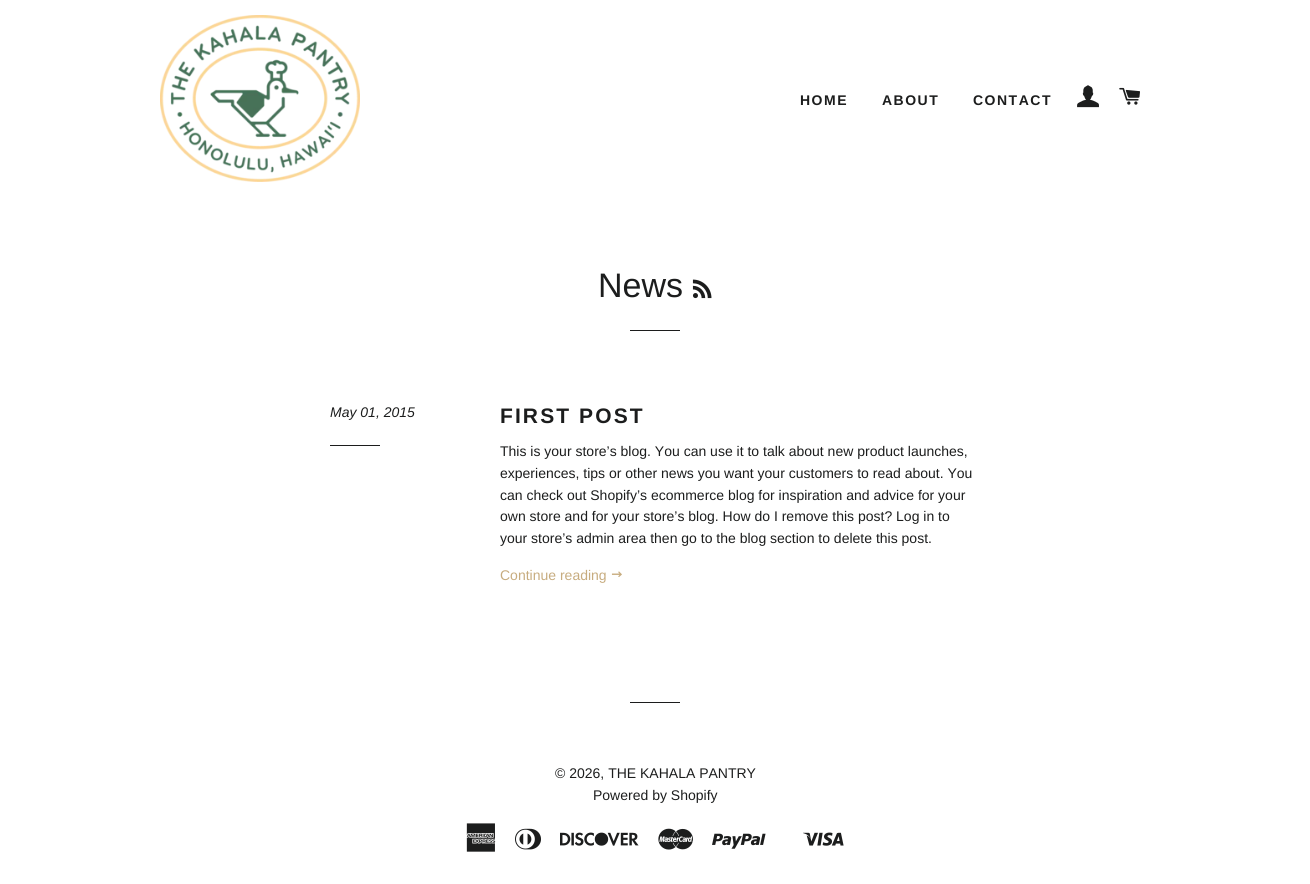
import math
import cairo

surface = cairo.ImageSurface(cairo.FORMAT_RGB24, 1310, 884)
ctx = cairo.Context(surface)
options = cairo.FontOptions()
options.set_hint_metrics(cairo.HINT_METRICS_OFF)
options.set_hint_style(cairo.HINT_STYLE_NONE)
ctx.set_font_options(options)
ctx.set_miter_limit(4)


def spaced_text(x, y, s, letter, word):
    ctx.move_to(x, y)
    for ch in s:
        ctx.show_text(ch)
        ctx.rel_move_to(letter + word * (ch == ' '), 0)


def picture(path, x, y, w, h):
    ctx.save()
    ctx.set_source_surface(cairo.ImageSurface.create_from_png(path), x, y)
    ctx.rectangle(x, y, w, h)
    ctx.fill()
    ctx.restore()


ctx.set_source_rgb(1, 1, 1)
ctx.paint()
picture("img1.png", 160, 15, 200, 167)
ctx.select_font_face("Liberation Sans", cairo.FONT_SLANT_NORMAL, cairo.FONT_WEIGHT_BOLD)
ctx.set_font_size(14)
ctx.set_source_rgb(0.11, 0.114, 0.114)
spaced_text(800, 105, "HOME", 1.5, 0)
spaced_text(882, 105, "ABOUT", 1.5, 0)
spaced_text(973, 105, "CONTACT", 1.5, 0)
picture("img2.png", 1077, 85, 22, 23)
picture("img3.png", 1119, 87, 21, 18)
ctx.select_font_face("Liberation Sans")
ctx.set_font_size(34)
ctx.move_to(598, 297)
ctx.show_text("News")
picture("img4.png", 692, 279, 20, 20)
ctx.rectangle(630, 330, 50, 1)
ctx.fill()
ctx.select_font_face("Liberation Sans", cairo.FONT_SLANT_ITALIC)
ctx.set_font_size(14)
ctx.move_to(330, 417)
ctx.show_text("May 01, 2015")
ctx.rectangle(330, 445, 50, 1)
ctx.fill()
ctx.select_font_face("Liberation Sans", cairo.FONT_SLANT_NORMAL, cairo.FONT_WEIGHT_BOLD)
ctx.set_font_size(21)
spaced_text(500, 423, "FIRST POST", 2.1, 0)
ctx.select_font_face("Liberation Sans")
ctx.set_font_size(14)
ctx.move_to(500, 456)
ctx.show_text("This is your store’s blog. You can use it to talk about new product launches,")
ctx.move_to(500, 478)
ctx.show_text("experiences, tips or other news you want your customers to read about. You")
ctx.move_to(500, 500)
ctx.show_text("can check out Shopify’s ecommerce blog for inspiration and advice for your")
ctx.move_to(500, 521)
ctx.show_text("own store and for your store’s blog. How do I remove this post? Log in to")
ctx.move_to(500, 543)
ctx.show_text("your store’s admin area then go to the blog section to delete this post.")
ctx.set_source_rgb(0.78, 0.675, 0.498)
ctx.move_to(500, 580)
ctx.show_text("Continue reading")
picture("img5.png", 611, 571, 11, 6)
ctx.set_source_rgb(0.11, 0.114, 0.114)
ctx.rectangle(630, 702, 50, 1)
ctx.fill()
ctx.move_to(555, 778)
ctx.show_text("© 2026, THE KAHALA PANTRY")
ctx.move_to(593, 800)
ctx.show_text("Powered by Shopify")
picture("img6.png", 466, 823, 30, 29)
picture("img7.png", 515, 828, 26, 22)
picture("img8.png", 560, 832, 79, 14)
picture("img9.png", 658, 828, 35, 22)
picture("img10.png", 712, 833, 54, 16)
picture("img11.png", 803, 832, 41, 14)
surface.write_to_png("page.png")
